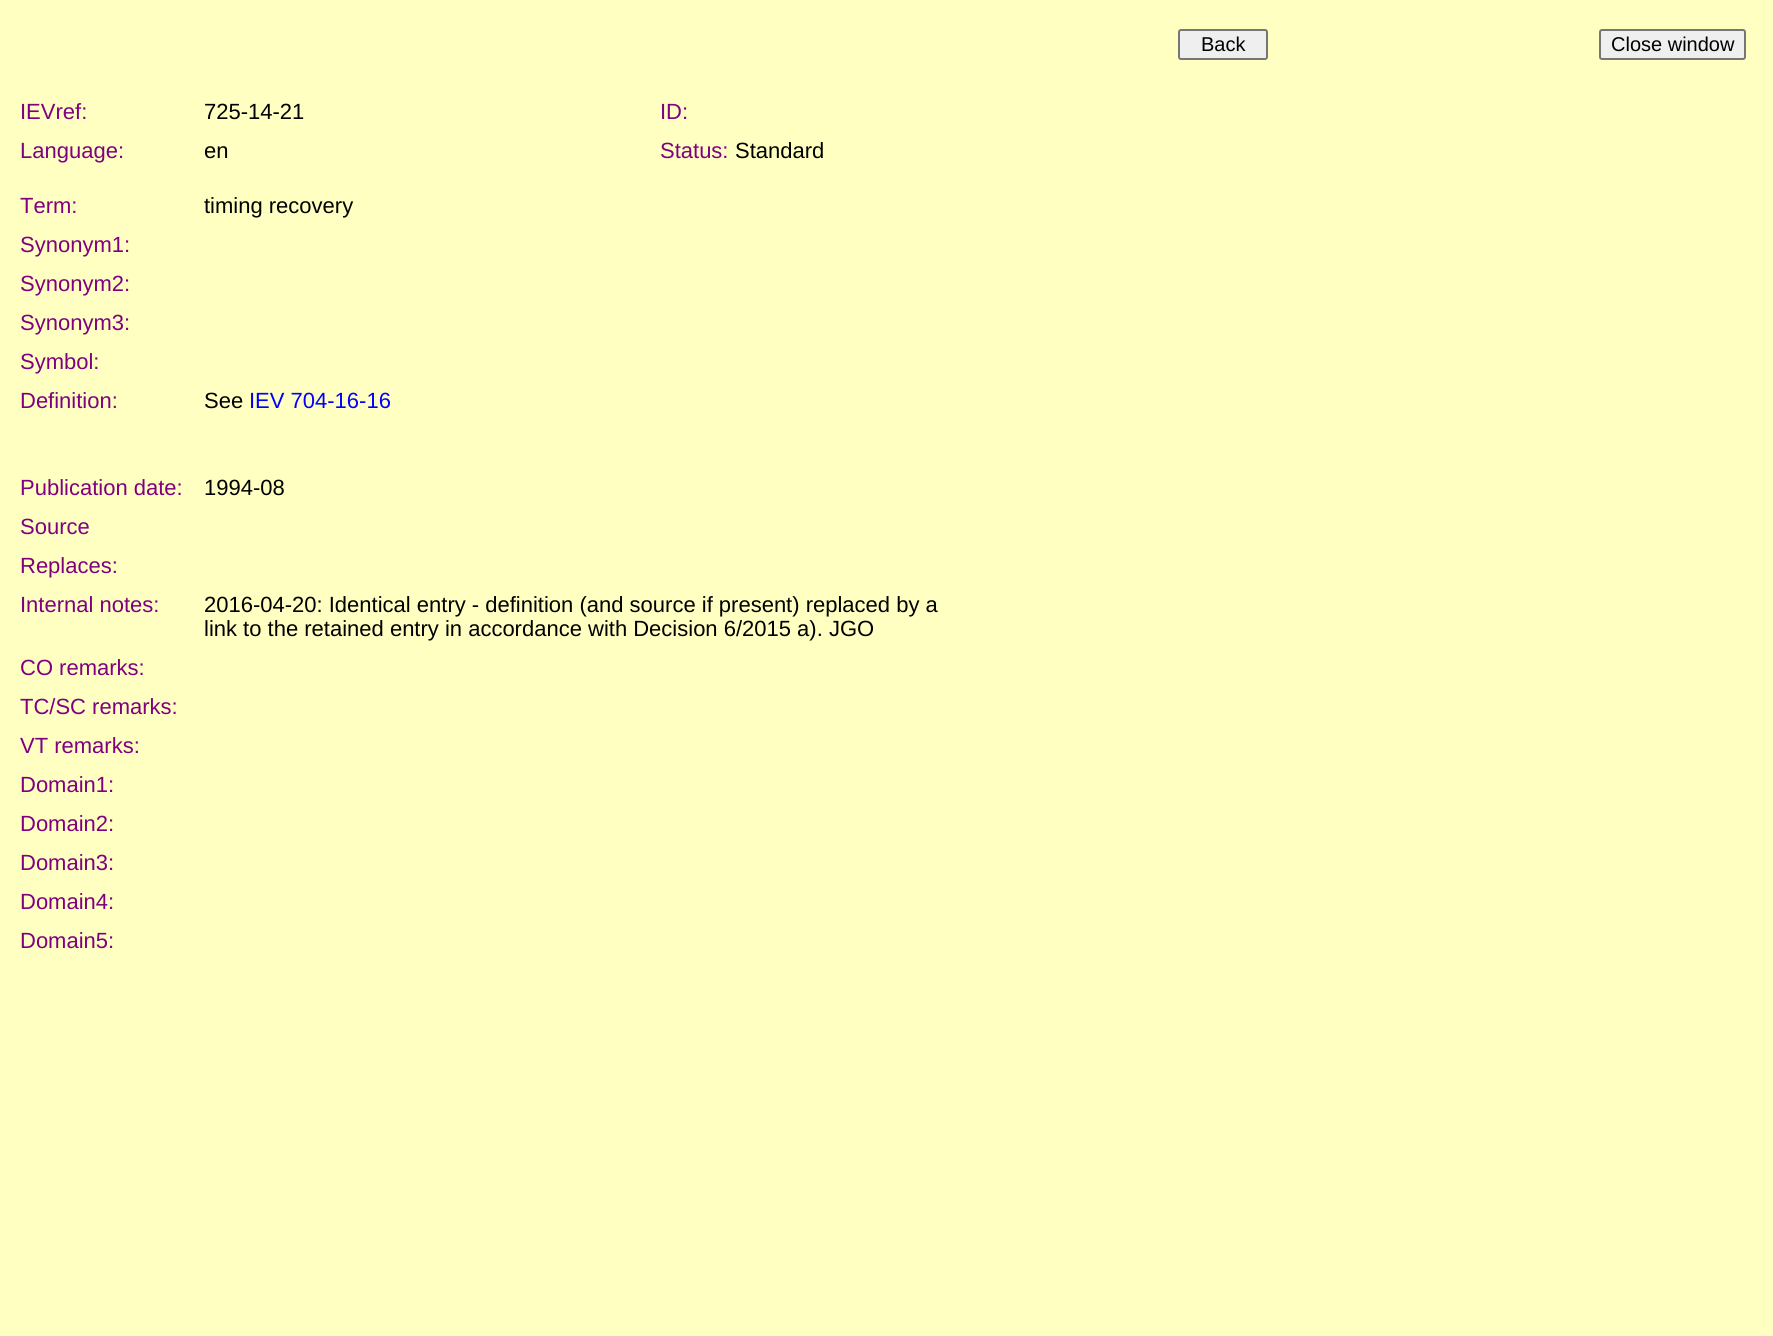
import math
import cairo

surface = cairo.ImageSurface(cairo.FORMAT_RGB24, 1773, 1336)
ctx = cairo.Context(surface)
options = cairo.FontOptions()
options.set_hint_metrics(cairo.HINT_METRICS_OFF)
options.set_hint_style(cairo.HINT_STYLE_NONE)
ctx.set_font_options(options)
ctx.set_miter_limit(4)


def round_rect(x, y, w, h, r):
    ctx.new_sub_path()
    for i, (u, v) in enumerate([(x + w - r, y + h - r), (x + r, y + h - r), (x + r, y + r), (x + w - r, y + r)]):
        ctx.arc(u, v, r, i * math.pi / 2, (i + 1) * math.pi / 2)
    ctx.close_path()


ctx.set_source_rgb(1, 1, 0.761)
ctx.paint()
ctx.set_source_rgb(0.937, 0.937, 0.937)
round_rect(1179, 30, 88, 29, 2)
ctx.fill_preserve()
ctx.set_source_rgb(0.463, 0.463, 0.463)
ctx.stroke()
ctx.select_font_face("Liberation Sans")
ctx.set_font_size(20)
ctx.set_source_rgb(0, 0, 0)
ctx.move_to(1201, 51)
ctx.show_text("Back")
ctx.set_source_rgb(0.937, 0.937, 0.937)
round_rect(1600, 30, 145, 29, 2)
ctx.fill_preserve()
ctx.set_source_rgb(0.463, 0.463, 0.463)
ctx.stroke()
ctx.set_source_rgb(0, 0, 0)
ctx.move_to(1611, 51)
ctx.show_text("Close window")
ctx.set_font_size(22)
ctx.set_source_rgb(0.502, 0, 0.502)
ctx.move_to(20, 119)
ctx.show_text("IEVref:")
ctx.set_source_rgb(0, 0, 0)
ctx.move_to(204, 119)
ctx.show_text("725-14-21")
ctx.set_source_rgb(0.502, 0, 0.502)
ctx.move_to(660, 119)
ctx.show_text("ID:")
ctx.move_to(20, 158)
ctx.show_text("Language:")
ctx.set_source_rgb(0, 0, 0)
ctx.move_to(204, 158)
ctx.show_text("en")
ctx.set_source_rgb(0.502, 0, 0.502)
ctx.move_to(660, 158)
ctx.show_text("Status:")
ctx.set_source_rgb(0, 0, 0)
ctx.move_to(735, 158)
ctx.show_text("Standard")
ctx.set_source_rgb(0.502, 0, 0.502)
ctx.move_to(20, 213)
ctx.show_text("Term:")
ctx.set_source_rgb(0, 0, 0)
ctx.move_to(204, 213)
ctx.show_text("timing recovery")
ctx.set_source_rgb(0.502, 0, 0.502)
ctx.move_to(20, 252)
ctx.show_text("Synonym1:")
ctx.move_to(20, 291)
ctx.show_text("Synonym2:")
ctx.move_to(20, 330)
ctx.show_text("Synonym3:")
ctx.move_to(20, 369)
ctx.show_text("Symbol:")
ctx.move_to(20, 408)
ctx.show_text("Definition:")
ctx.set_source_rgb(0, 0, 0)
ctx.move_to(204, 408)
ctx.show_text("See")
ctx.set_source_rgb(0, 0, 1)
ctx.move_to(249, 408)
ctx.show_text("IEV 704-16-16")
ctx.set_source_rgb(0.502, 0, 0.502)
ctx.move_to(20, 495)
ctx.show_text("Publication date:")
ctx.set_source_rgb(0, 0, 0)
ctx.move_to(204, 495)
ctx.show_text("1994-08")
ctx.set_source_rgb(0.502, 0, 0.502)
ctx.move_to(20, 534)
ctx.show_text("Source")
ctx.move_to(20, 573)
ctx.show_text("Replaces:")
ctx.move_to(20, 612)
ctx.show_text("Internal notes:")
ctx.set_source_rgb(0, 0, 0)
ctx.move_to(204, 612)
ctx.show_text("2016-04-20: Identical entry - definition (and source if present) replaced by a")
ctx.move_to(204, 636)
ctx.show_text("link to the retained entry in accordance with Decision 6/2015 a). JGO")
ctx.set_source_rgb(0.502, 0, 0.502)
ctx.move_to(20, 675)
ctx.show_text("CO remarks:")
ctx.move_to(20, 714)
ctx.show_text("TC/SC remarks:")
ctx.move_to(20, 753)
ctx.show_text("VT remarks:")
ctx.move_to(20, 792)
ctx.show_text("Domain1:")
ctx.move_to(20, 831)
ctx.show_text("Domain2:")
ctx.move_to(20, 870)
ctx.show_text("Domain3:")
ctx.move_to(20, 909)
ctx.show_text("Domain4:")
ctx.move_to(20, 948)
ctx.show_text("Domain5:")
surface.write_to_png("page.png")
